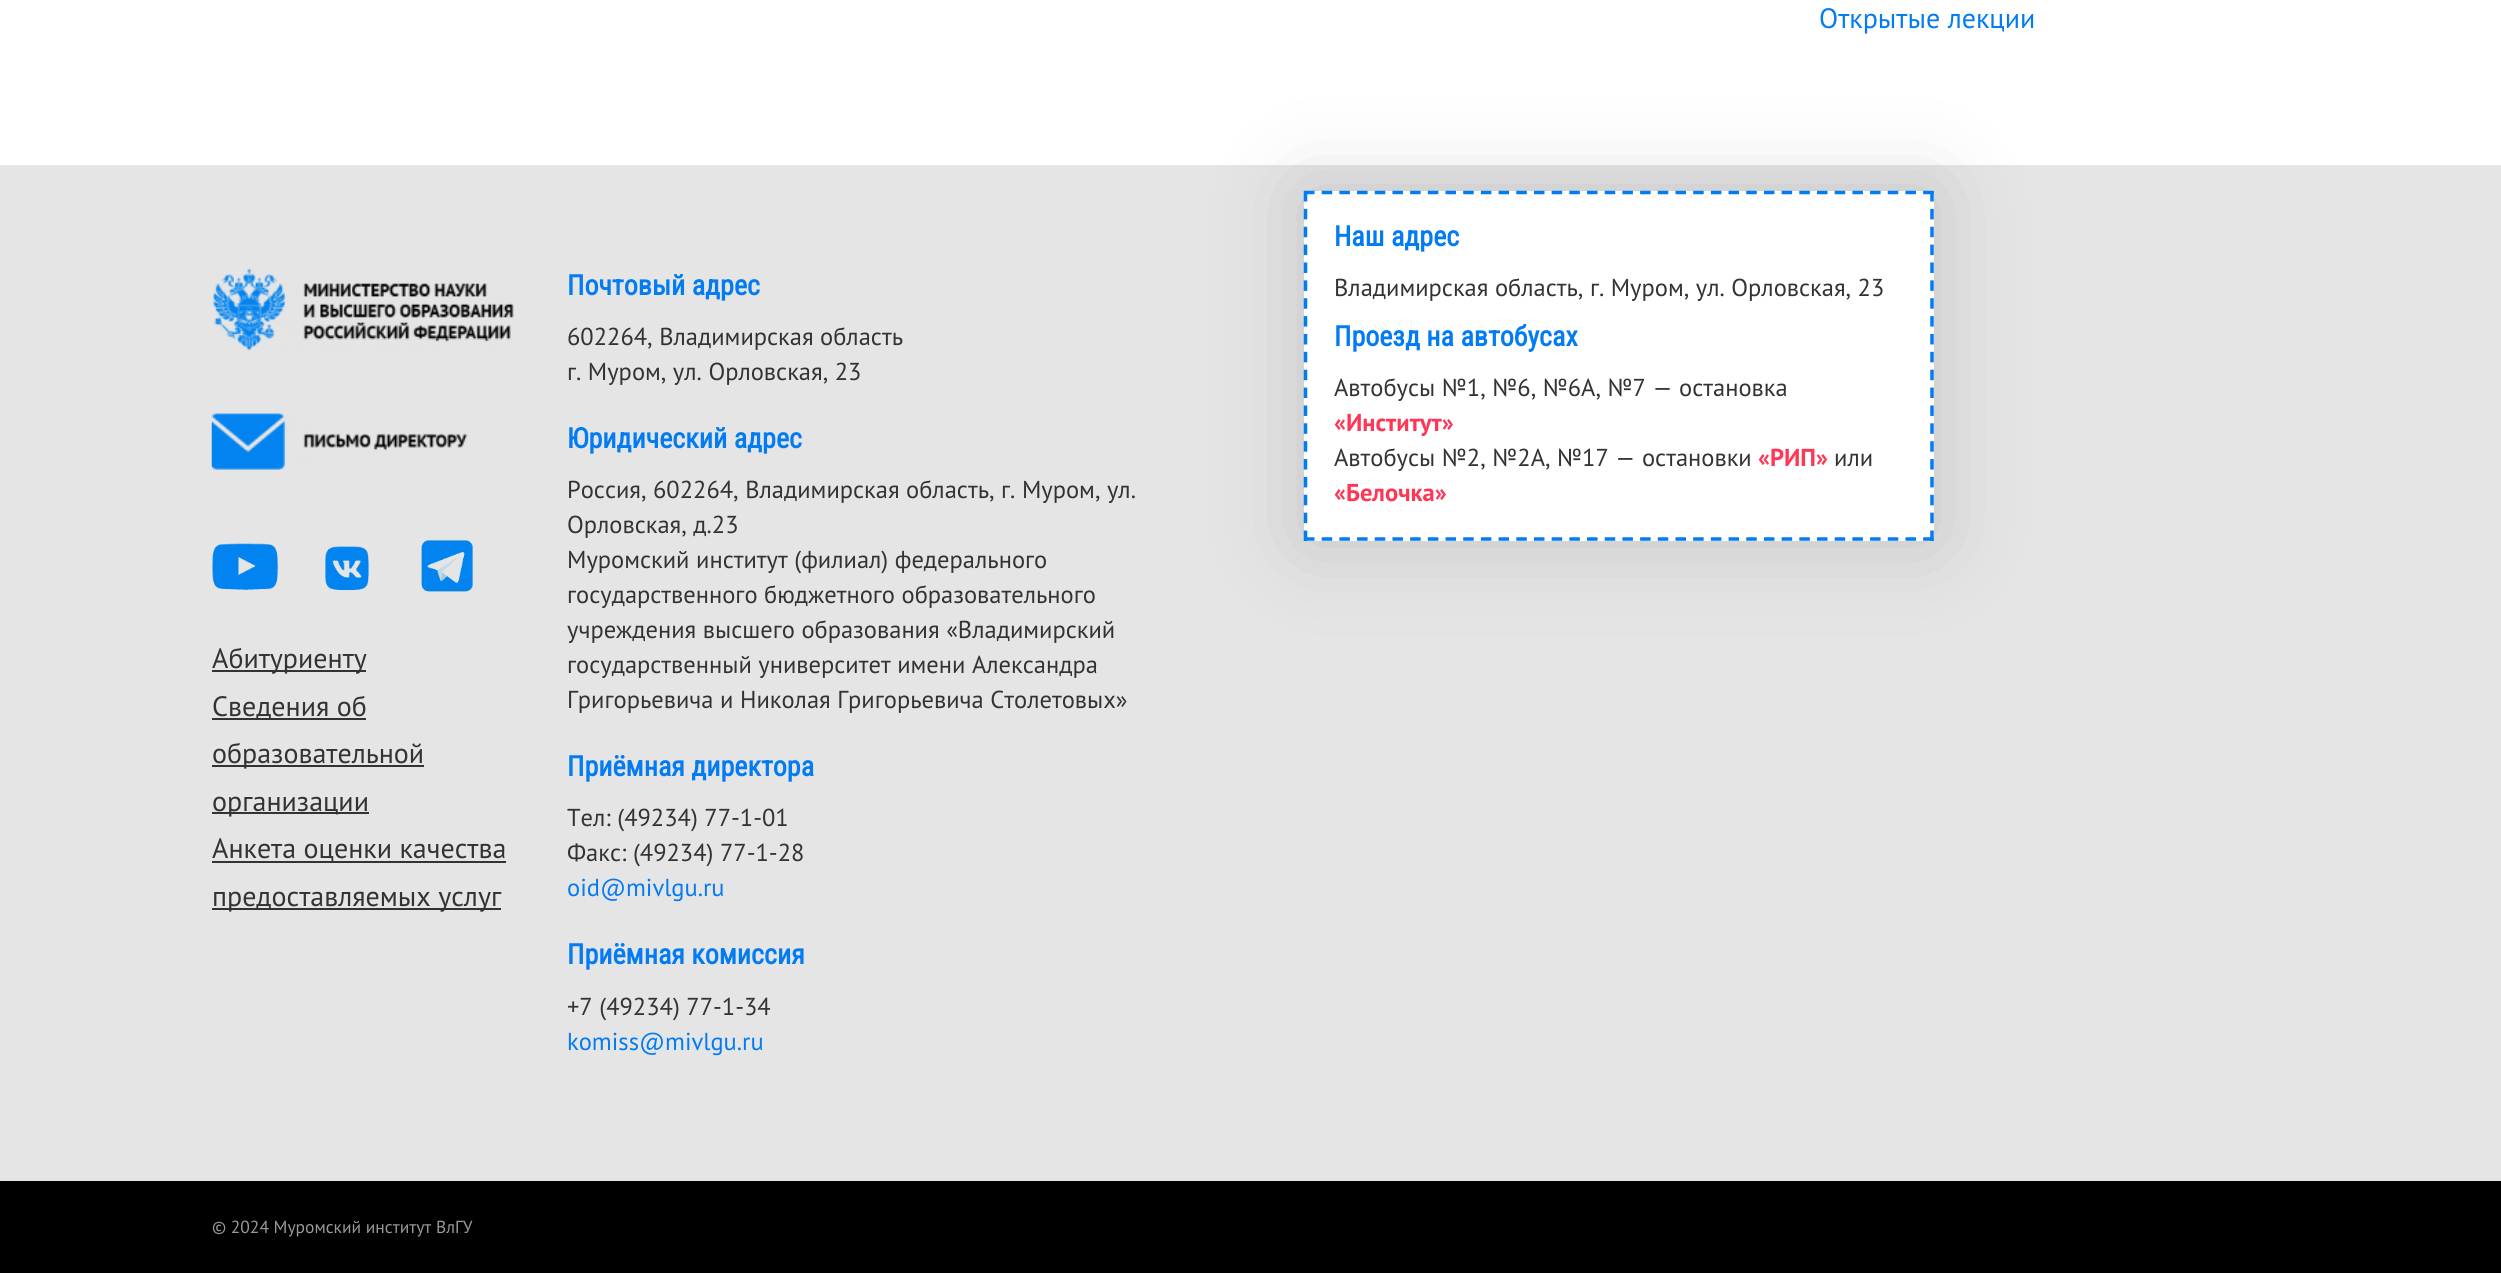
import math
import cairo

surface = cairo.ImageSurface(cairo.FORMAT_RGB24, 2501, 1273)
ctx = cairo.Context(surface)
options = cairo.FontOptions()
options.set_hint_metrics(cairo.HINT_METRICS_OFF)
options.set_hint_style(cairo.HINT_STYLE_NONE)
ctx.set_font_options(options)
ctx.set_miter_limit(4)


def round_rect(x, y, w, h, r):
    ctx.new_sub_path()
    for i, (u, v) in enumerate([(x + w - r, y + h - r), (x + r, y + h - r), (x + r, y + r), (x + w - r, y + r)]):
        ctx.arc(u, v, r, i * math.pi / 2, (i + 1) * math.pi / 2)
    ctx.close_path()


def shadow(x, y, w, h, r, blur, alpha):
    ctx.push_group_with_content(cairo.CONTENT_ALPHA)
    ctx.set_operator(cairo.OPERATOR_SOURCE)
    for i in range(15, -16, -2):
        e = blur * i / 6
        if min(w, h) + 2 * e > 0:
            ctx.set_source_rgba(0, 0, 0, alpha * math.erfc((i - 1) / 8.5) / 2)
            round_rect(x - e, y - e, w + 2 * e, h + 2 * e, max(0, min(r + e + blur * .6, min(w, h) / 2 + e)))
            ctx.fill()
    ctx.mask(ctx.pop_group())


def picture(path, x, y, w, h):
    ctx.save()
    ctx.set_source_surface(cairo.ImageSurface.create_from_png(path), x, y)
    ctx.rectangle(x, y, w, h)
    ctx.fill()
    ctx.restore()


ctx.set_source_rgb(1, 1, 1)
ctx.paint()
ctx.select_font_face("PT Sans")
ctx.set_font_size(28)
ctx.set_source_rgb(0.008, 0.482, 0.953)
ctx.move_to(1819, 28)
ctx.show_text("Открытые лекции")
ctx.set_source_rgb(0.898, 0.898, 0.898)
ctx.rectangle(0, 165, 2501, 1016)
ctx.fill()
picture("img1.png", 213, 268, 301, 83)
picture("img2.png", 211, 413, 257, 57)
picture("img3.png", 212, 543, 67, 47)
picture("img4.png", 325, 546, 44, 44)
picture("img5.png", 421, 540, 52, 52)
ctx.set_source_rgb(0.2, 0.2, 0.2)
ctx.rectangle(212, 670, 154, 2)
ctx.fill()
ctx.move_to(212, 668)
ctx.show_text("Абитуриенту")
ctx.rectangle(212, 718, 154, 2)
ctx.fill()
ctx.move_to(212, 716)
ctx.show_text("Сведения об")
ctx.rectangle(212, 765, 212, 2)
ctx.fill()
ctx.move_to(212, 763)
ctx.show_text("образовательной")
ctx.rectangle(212, 812, 157, 2)
ctx.fill()
ctx.move_to(212, 811)
ctx.show_text("организации")
ctx.rectangle(212, 861, 294, 2)
ctx.fill()
ctx.move_to(212, 858)
ctx.show_text("Анкета оценки качества")
ctx.rectangle(212, 908, 289, 2)
ctx.fill()
ctx.move_to(212, 906)
ctx.show_text("предоставляемых услуг")
ctx.select_font_face("Roboto Condensed", cairo.FONT_SLANT_NORMAL, cairo.FONT_WEIGHT_BOLD)
ctx.set_source_rgb(0.008, 0.482, 0.953)
ctx.move_to(567, 295)
ctx.show_text("Почтовый адрес")
ctx.select_font_face("PT Sans")
ctx.set_font_size(24.5)
ctx.set_source_rgb(0.2, 0.2, 0.2)
ctx.move_to(567, 345)
ctx.show_text("602264, Владимирская область")
ctx.move_to(567, 380)
ctx.show_text("г. Муром, ул. Орловская, 23")
ctx.select_font_face("Roboto Condensed", cairo.FONT_SLANT_NORMAL, cairo.FONT_WEIGHT_BOLD)
ctx.set_font_size(28)
ctx.set_source_rgb(0.008, 0.482, 0.953)
ctx.move_to(567, 448)
ctx.show_text("Юридический адрес")
ctx.select_font_face("PT Sans")
ctx.set_font_size(24.5)
ctx.set_source_rgb(0.2, 0.2, 0.2)
ctx.move_to(567, 498)
ctx.show_text("Россия, 602264, Владимирская область, г. Муром, ул.")
ctx.move_to(567, 533)
ctx.show_text("Орловская, д.23")
ctx.move_to(567, 568)
ctx.show_text("Муромский институт (филиал) федерального")
ctx.move_to(567, 603)
ctx.show_text("государственного бюджетного образовательного")
ctx.move_to(567, 638)
ctx.show_text("учреждения высшего образования «Владимирский")
ctx.move_to(567, 673)
ctx.show_text("государственный университет имени Александра")
ctx.move_to(567, 708)
ctx.show_text("Григорьевича и Николая Григорьевича Столетовых»")
ctx.select_font_face("Roboto Condensed", cairo.FONT_SLANT_NORMAL, cairo.FONT_WEIGHT_BOLD)
ctx.set_font_size(28)
ctx.set_source_rgb(0.008, 0.482, 0.953)
ctx.move_to(567, 776)
ctx.show_text("Приёмная директора")
ctx.select_font_face("PT Sans")
ctx.set_font_size(24.5)
ctx.set_source_rgb(0.2, 0.2, 0.2)
ctx.move_to(567, 826)
ctx.show_text("Тел: (49234) 77-1-01")
ctx.move_to(567, 861)
ctx.show_text("Факс: (49234) 77-1-28")
ctx.set_source_rgb(0.008, 0.482, 0.953)
ctx.move_to(567, 896)
ctx.show_text("oid@mivlgu.ru")
ctx.select_font_face("Roboto Condensed", cairo.FONT_SLANT_NORMAL, cairo.FONT_WEIGHT_BOLD)
ctx.set_font_size(28)
ctx.move_to(567, 964)
ctx.show_text("Приёмная комиссия")
ctx.select_font_face("PT Sans")
ctx.set_font_size(24.5)
ctx.set_source_rgb(0.2, 0.2, 0.2)
ctx.move_to(567, 1015)
ctx.show_text("+7 (49234) 77-1-34")
ctx.set_source_rgb(0.008, 0.482, 0.953)
ctx.move_to(567, 1050)
ctx.show_text("komiss@mivlgu.ru")
ctx.set_source_rgb(0.2, 0.2, 0.2)
shadow(1304, 191, 630, 350, 0, 44, 0.2)
ctx.set_source_rgb(1, 1, 1)
ctx.rectangle(1304, 191, 630, 350)
ctx.fill()
ctx.new_path()
ctx.move_to(1304, 192.5)
ctx.line_to(1934, 192.5)
ctx.set_source_rgb(0.008, 0.482, 0.953)
ctx.set_line_width(3.5)
ctx.set_dash([10.5, 7.19])
ctx.stroke()
ctx.new_path()
ctx.move_to(1932, 191)
ctx.line_to(1932, 541)
ctx.set_dash([10.5, 7.37])
ctx.stroke()
ctx.new_path()
ctx.move_to(1304, 539)
ctx.line_to(1934, 539)
ctx.set_dash([10.5, 7.19])
ctx.stroke()
ctx.new_path()
ctx.move_to(1305.5, 191)
ctx.line_to(1305.5, 541)
ctx.set_dash([10.5, 7.37])
ctx.stroke()
ctx.select_font_face("Roboto Condensed", cairo.FONT_SLANT_NORMAL, cairo.FONT_WEIGHT_BOLD)
ctx.set_font_size(28)
ctx.move_to(1334, 246)
ctx.show_text("Наш адрес")
ctx.select_font_face("PT Sans")
ctx.set_font_size(24.5)
ctx.set_source_rgb(0.2, 0.2, 0.2)
ctx.move_to(1334, 296)
ctx.show_text("Владимирская область, г. Муром, ул. Орловская, 23")
ctx.select_font_face("Roboto Condensed", cairo.FONT_SLANT_NORMAL, cairo.FONT_WEIGHT_BOLD)
ctx.set_font_size(28)
ctx.set_source_rgb(0.008, 0.482, 0.953)
ctx.move_to(1334, 346)
ctx.show_text("Проезд на автобусах")
ctx.select_font_face("PT Sans")
ctx.set_font_size(24.5)
ctx.set_source_rgb(0.2, 0.2, 0.2)
ctx.move_to(1334, 396)
ctx.show_text("Автобусы №1, №6, №6А, №7 — остановка")
ctx.select_font_face("PT Sans", cairo.FONT_SLANT_NORMAL, cairo.FONT_WEIGHT_BOLD)
ctx.set_source_rgb(1, 0.216, 0.337)
ctx.move_to(1334, 431)
ctx.show_text("«Институт»")
ctx.select_font_face("PT Sans")
ctx.set_source_rgb(0.2, 0.2, 0.2)
ctx.move_to(1334, 466)
ctx.show_text("Автобусы №2, №2А, №17 — остановки")
ctx.select_font_face("PT Sans", cairo.FONT_SLANT_NORMAL, cairo.FONT_WEIGHT_BOLD)
ctx.set_source_rgb(1, 0.216, 0.337)
ctx.move_to(1758, 466)
ctx.show_text("«РИП»")
ctx.select_font_face("PT Sans")
ctx.set_source_rgb(0.2, 0.2, 0.2)
ctx.move_to(1834, 466)
ctx.show_text("или")
ctx.select_font_face("PT Sans", cairo.FONT_SLANT_NORMAL, cairo.FONT_WEIGHT_BOLD)
ctx.set_source_rgb(1, 0.216, 0.337)
ctx.move_to(1334, 501)
ctx.show_text("«Белочка»")
ctx.set_source_rgb(0, 0, 0)
ctx.rectangle(0, 1181, 2501, 92)
ctx.fill()
ctx.select_font_face("PT Sans")
ctx.set_font_size(17.5)
ctx.set_source_rgb(0.6, 0.6, 0.6)
ctx.move_to(212, 1233)
ctx.show_text("© 2024 Муромский институт ВлГУ")
surface.write_to_png("page.png")
